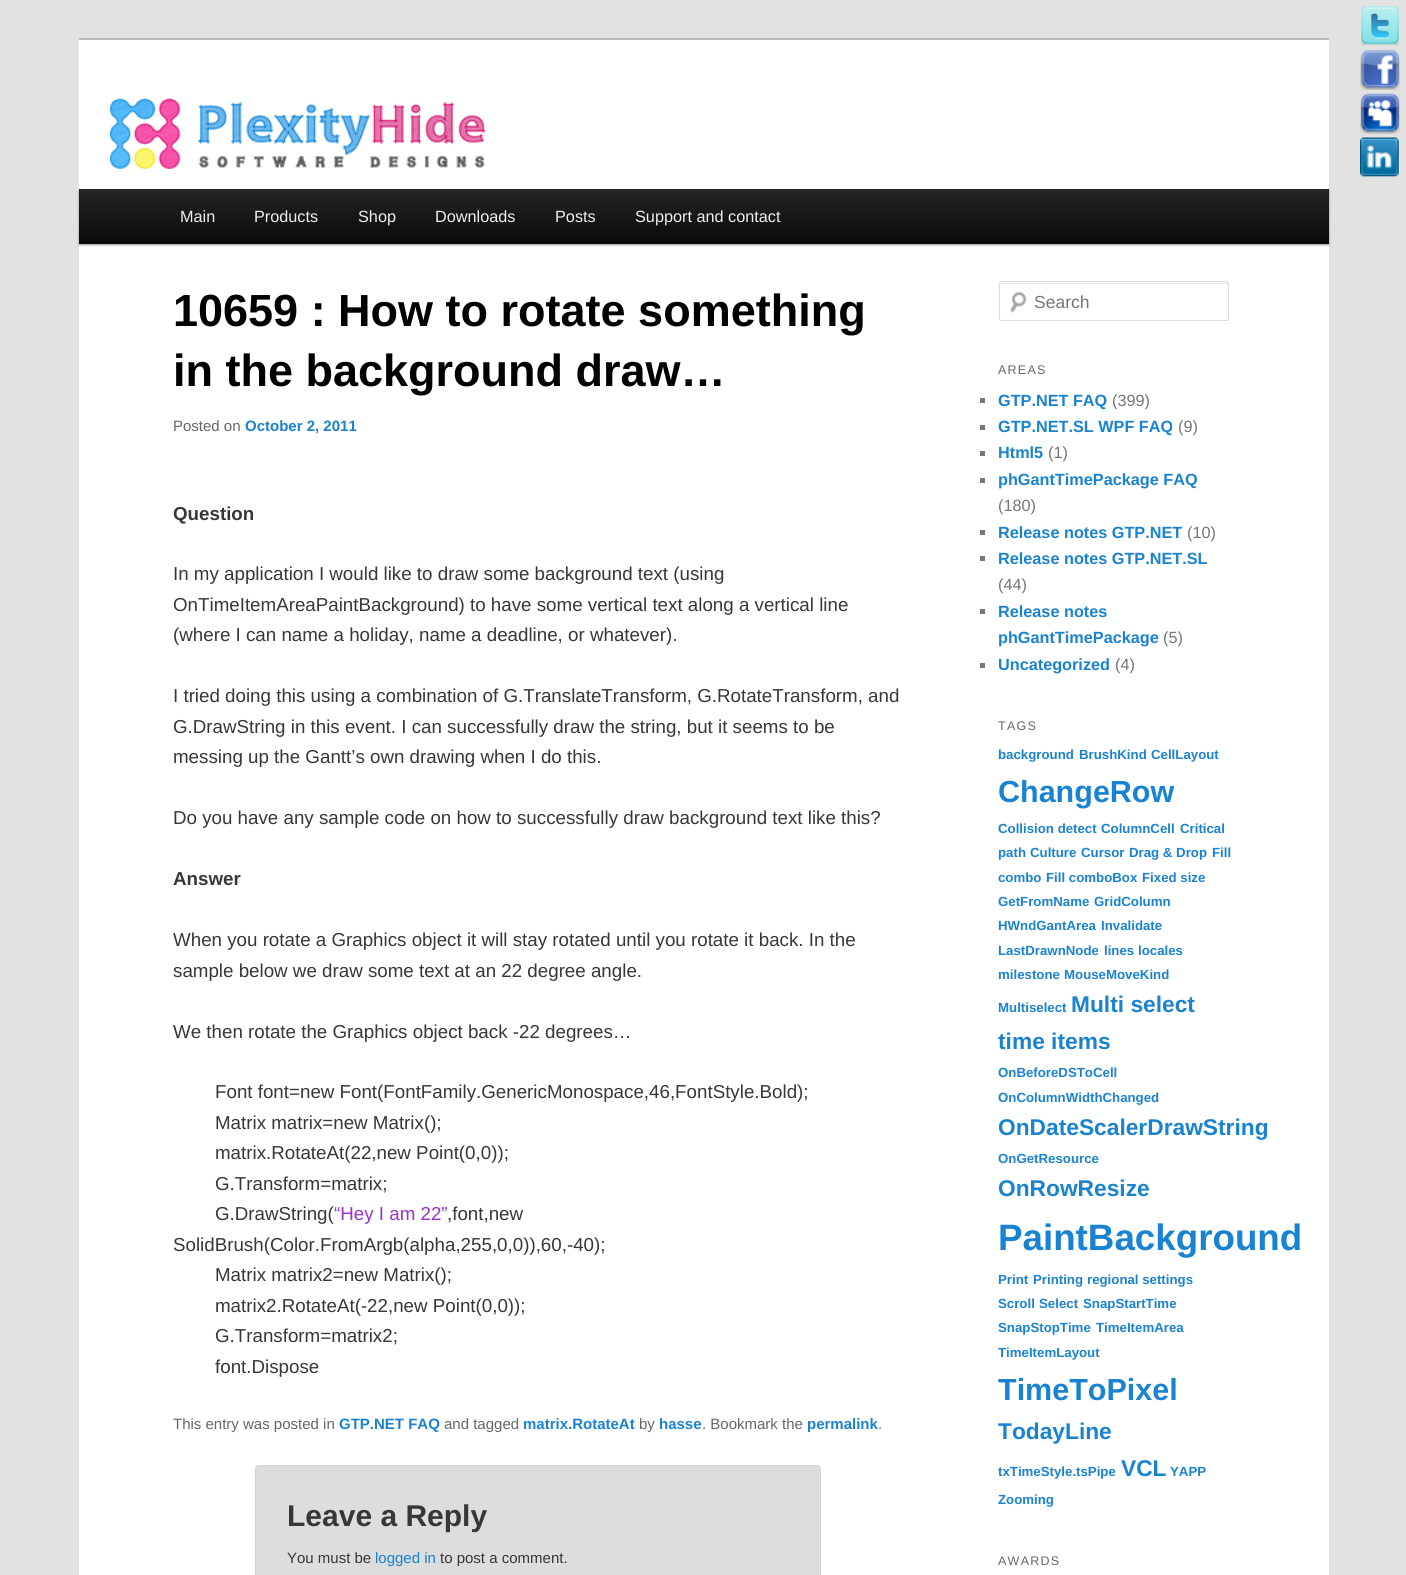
import math
import cairo

surface = cairo.ImageSurface(cairo.FORMAT_RGB24, 1406, 1575)
ctx = cairo.Context(surface)
options = cairo.FontOptions()
options.set_hint_metrics(cairo.HINT_METRICS_OFF)
options.set_hint_style(cairo.HINT_STYLE_NONE)
ctx.set_font_options(options)
ctx.set_miter_limit(4)


def spaced_text(x, y, s, letter, word):
    ctx.move_to(x, y)
    for ch in s:
        ctx.show_text(ch)
        ctx.rel_move_to(letter + word * (ch == ' '), 0)


def round_rect(x, y, w, h, r):
    ctx.new_sub_path()
    for i, (u, v) in enumerate([(x + w - r, y + h - r), (x + r, y + h - r), (x + r, y + r), (x + w - r, y + r)]):
        ctx.arc(u, v, r, i * math.pi / 2, (i + 1) * math.pi / 2)
    ctx.close_path()


def shadow(x, y, w, h, r, blur, alpha):
    ctx.push_group_with_content(cairo.CONTENT_ALPHA)
    ctx.set_operator(cairo.OPERATOR_SOURCE)
    for i in range(15, -16, -2):
        e = blur * i / 6
        if min(w, h) + 2 * e > 0:
            ctx.set_source_rgba(0, 0, 0, alpha * math.erfc((i - 1) / 8.5) / 2)
            round_rect(x - e, y - e, w + 2 * e, h + 2 * e, max(0, min(r + e + blur * .6, min(w, h) / 2 + e)))
            ctx.fill()
    ctx.mask(ctx.pop_group())


def picture(path, x, y, w, h):
    ctx.save()
    ctx.set_source_surface(cairo.ImageSurface.create_from_png(path), x, y)
    ctx.rectangle(x, y, w, h)
    ctx.fill()
    ctx.restore()


ctx.set_source_rgb(0.886, 0.886, 0.886)
ctx.paint()
picture("img1.png", 1361, 6, 38, 40)
picture("img2.png", 1360, 50, 40, 40)
picture("img3.png", 1360, 93, 40, 41)
picture("img4.png", 1360, 137, 39, 40)
ctx.set_source_rgb(1, 1, 1)
ctx.rectangle(79, 41, 1250, 1534)
ctx.fill()
ctx.set_source_rgb(0.733, 0.733, 0.733)
ctx.rectangle(79, 38, 1250, 3)
ctx.fill()
ctx.set_source_rgb(0, 0, 0)
shadow(79, 190, 1250, 55, 0, 1, 0.4)
picture("img5.png", 78, 40, 1251, 149)
gradient = cairo.LinearGradient(704, 189, 704, 244)
gradient.add_color_stop_rgba(0, 0.145, 0.145, 0.145, 1)
gradient.add_color_stop_rgba(1, 0.039, 0.039, 0.039, 1)
ctx.set_source(gradient)
ctx.rectangle(79, 189, 1250, 55)
ctx.fill()
ctx.select_font_face("Liberation Sans")
ctx.set_font_size(16.25)
ctx.set_source_rgb(0.933, 0.933, 0.933)
ctx.move_to(180, 222)
ctx.show_text("Main")
ctx.move_to(254, 222)
ctx.show_text("Products")
ctx.move_to(358, 222)
ctx.show_text("Shop")
ctx.move_to(435, 222)
ctx.show_text("Downloads")
ctx.move_to(555, 222)
ctx.show_text("Posts")
ctx.move_to(635, 222)
ctx.show_text("Support and contact")
ctx.select_font_face("Liberation Sans", cairo.FONT_SLANT_NORMAL, cairo.FONT_WEIGHT_BOLD)
ctx.set_font_size(45)
ctx.set_source_rgb(0, 0, 0)
ctx.move_to(173, 326)
ctx.show_text("10659 : How to rotate something")
ctx.move_to(173, 386)
ctx.show_text("in the background draw…")
ctx.select_font_face("Liberation Sans")
ctx.set_font_size(15)
ctx.set_source_rgb(0.4, 0.4, 0.4)
ctx.move_to(173, 431)
ctx.show_text("Posted on")
ctx.select_font_face("Liberation Sans", cairo.FONT_SLANT_NORMAL, cairo.FONT_WEIGHT_BOLD)
ctx.set_source_rgb(0.098, 0.51, 0.82)
ctx.move_to(245, 431)
ctx.show_text("October 2, 2011")
ctx.set_font_size(18.75)
ctx.set_source_rgb(0.216, 0.216, 0.216)
ctx.move_to(173, 520)
ctx.show_text("Question")
ctx.select_font_face("Liberation Sans")
ctx.move_to(173, 580)
ctx.show_text("In my application I would like to draw some background text (using")
ctx.move_to(173, 611)
ctx.show_text("OnTimeItemAreaPaintBackground) to have some vertical text along a vertical line")
ctx.move_to(173, 641)
ctx.show_text("(where I can name a holiday, name a deadline, or whatever).")
ctx.move_to(173, 702)
ctx.show_text("I tried doing this using a combination of G.TranslateTransform, G.RotateTransform, and")
ctx.move_to(173, 733)
ctx.show_text("G.DrawString in this event. I can successfully draw the string, but it seems to be")
ctx.move_to(173, 763)
ctx.show_text("messing up the Gantt’s own drawing when I do this.")
ctx.move_to(173, 824)
ctx.show_text("Do you have any sample code on how to successfully draw background text like this?")
ctx.select_font_face("Liberation Sans", cairo.FONT_SLANT_NORMAL, cairo.FONT_WEIGHT_BOLD)
ctx.move_to(173, 885)
ctx.show_text("Answer")
ctx.select_font_face("Liberation Sans")
ctx.move_to(173, 946)
ctx.show_text("When you rotate a Graphics object it will stay rotated until you rotate it back. In the")
ctx.move_to(173, 977)
ctx.show_text("sample below we draw some text at an 22 degree angle.")
ctx.move_to(173, 1038)
ctx.show_text("We then rotate the Graphics object back -22 degrees…")
ctx.move_to(215, 1098)
ctx.show_text("Font font=new Font(FontFamily.GenericMonospace,46,FontStyle.Bold);")
ctx.move_to(215, 1129)
ctx.show_text("Matrix matrix=new Matrix();")
ctx.move_to(215, 1159)
ctx.show_text("matrix.RotateAt(22,new Point(0,0));")
ctx.move_to(215, 1190)
ctx.show_text("G.Transform=matrix;")
ctx.move_to(215, 1220)
ctx.show_text("G.DrawString(")
ctx.set_source_rgb(0.6, 0.2, 0.8)
ctx.move_to(334, 1220)
ctx.show_text("“Hey I am 22”")
ctx.set_source_rgb(0.216, 0.216, 0.216)
ctx.move_to(447, 1220)
ctx.show_text(",font,new")
ctx.move_to(173, 1251)
ctx.show_text("SolidBrush(Color.FromArgb(alpha,255,0,0)),60,-40);")
ctx.move_to(215, 1281)
ctx.show_text("Matrix matrix2=new Matrix();")
ctx.move_to(215, 1312)
ctx.show_text("matrix2.RotateAt(-22,new Point(0,0));")
ctx.move_to(215, 1342)
ctx.show_text("G.Transform=matrix2;")
ctx.move_to(215, 1373)
ctx.show_text("font.Dispose")
ctx.set_font_size(15)
ctx.set_source_rgb(0.4, 0.4, 0.4)
ctx.move_to(173, 1429)
ctx.show_text("This entry was posted in")
ctx.select_font_face("Liberation Sans", cairo.FONT_SLANT_NORMAL, cairo.FONT_WEIGHT_BOLD)
ctx.set_source_rgb(0.098, 0.51, 0.82)
ctx.move_to(339, 1429)
ctx.show_text("GTP.NET FAQ")
ctx.select_font_face("Liberation Sans")
ctx.set_source_rgb(0.4, 0.4, 0.4)
ctx.move_to(444, 1429)
ctx.show_text("and tagged")
ctx.select_font_face("Liberation Sans", cairo.FONT_SLANT_NORMAL, cairo.FONT_WEIGHT_BOLD)
ctx.set_source_rgb(0.098, 0.51, 0.82)
ctx.move_to(523, 1429)
ctx.show_text("matrix.RotateAt")
ctx.select_font_face("Liberation Sans")
ctx.set_source_rgb(0.4, 0.4, 0.4)
ctx.move_to(639, 1429)
ctx.show_text("by")
ctx.select_font_face("Liberation Sans", cairo.FONT_SLANT_NORMAL, cairo.FONT_WEIGHT_BOLD)
ctx.set_source_rgb(0.098, 0.51, 0.82)
ctx.move_to(659, 1429)
ctx.show_text("hasse")
ctx.select_font_face("Liberation Sans")
ctx.set_source_rgb(0.4, 0.4, 0.4)
ctx.move_to(702, 1429)
ctx.show_text(". Bookmark the")
ctx.select_font_face("Liberation Sans", cairo.FONT_SLANT_NORMAL, cairo.FONT_WEIGHT_BOLD)
ctx.set_source_rgb(0.098, 0.51, 0.82)
ctx.move_to(807, 1429)
ctx.show_text("permalink")
ctx.select_font_face("Liberation Sans")
ctx.set_source_rgb(0.4, 0.4, 0.4)
ctx.move_to(878, 1429)
ctx.show_text(".")
ctx.set_source_rgb(0.867, 0.867, 0.867)
round_rect(255.5, 1465.5, 565, 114, 3.5)
ctx.fill_preserve()
ctx.set_source_rgb(0.827, 0.827, 0.827)
ctx.set_line_width(1)
ctx.stroke()
ctx.select_font_face("Liberation Sans", cairo.FONT_SLANT_NORMAL, cairo.FONT_WEIGHT_BOLD)
ctx.set_font_size(30)
ctx.set_source_rgb(0.216, 0.216, 0.216)
ctx.move_to(287, 1526)
ctx.show_text("Leave a Reply")
ctx.select_font_face("Liberation Sans")
ctx.set_font_size(15)
ctx.move_to(287, 1563)
ctx.show_text("You must be")
ctx.set_source_rgb(0.098, 0.51, 0.82)
ctx.move_to(375, 1563)
ctx.show_text("logged in")
ctx.set_source_rgb(0.216, 0.216, 0.216)
ctx.move_to(440, 1563)
ctx.show_text("to post a comment.")
picture("img6.png", 1010, 291, 17, 22)
ctx.set_source_rgb(0.902, 0.902, 0.902)
ctx.new_path()
ctx.move_to(1001, 284)
ctx.line_to(1226, 284)
ctx.curve_to(1227, 284, 1228, 284, 1228, 285)
ctx.line_to(1228, 283)
ctx.line_to(1001, 283)
ctx.curve_to(1000, 283, 1000, 284, 1000, 285)
ctx.close_path()
ctx.fill()
round_rect(999.5, 281.5, 229, 39, 2)
ctx.set_source_rgb(0.867, 0.867, 0.867)
ctx.stroke()
ctx.set_font_size(17.5)
ctx.set_source_rgb(0.459, 0.459, 0.459)
ctx.move_to(1034, 308)
ctx.show_text("Search")
ctx.set_font_size(12.5)
ctx.set_source_rgb(0.4, 0.4, 0.4)
spaced_text(998, 374, "AREAS", 1.25, 0)
ctx.set_source_rgb(0.467, 0.467, 0.467)
ctx.rectangle(980, 398, 5, 5)
ctx.fill()
ctx.select_font_face("Liberation Sans", cairo.FONT_SLANT_NORMAL, cairo.FONT_WEIGHT_BOLD)
ctx.set_font_size(16.25)
ctx.set_source_rgb(0.098, 0.51, 0.82)
ctx.move_to(998, 406)
ctx.show_text("GTP.NET FAQ")
ctx.select_font_face("Liberation Sans")
ctx.set_source_rgb(0.459, 0.459, 0.459)
ctx.move_to(1112, 406)
ctx.show_text("(399)")
ctx.set_source_rgb(0.467, 0.467, 0.467)
ctx.rectangle(980, 425, 5, 5)
ctx.fill()
ctx.select_font_face("Liberation Sans", cairo.FONT_SLANT_NORMAL, cairo.FONT_WEIGHT_BOLD)
ctx.set_source_rgb(0.098, 0.51, 0.82)
ctx.move_to(998, 432)
ctx.show_text("GTP.NET.SL WPF FAQ")
ctx.select_font_face("Liberation Sans")
ctx.set_source_rgb(0.459, 0.459, 0.459)
ctx.move_to(1178, 432)
ctx.show_text("(9)")
ctx.set_source_rgb(0.467, 0.467, 0.467)
ctx.rectangle(980, 451, 5, 5)
ctx.fill()
ctx.select_font_face("Liberation Sans", cairo.FONT_SLANT_NORMAL, cairo.FONT_WEIGHT_BOLD)
ctx.set_source_rgb(0.098, 0.51, 0.82)
ctx.move_to(998, 458)
ctx.show_text("Html5")
ctx.select_font_face("Liberation Sans")
ctx.set_source_rgb(0.459, 0.459, 0.459)
ctx.move_to(1048, 458)
ctx.show_text("(1)")
ctx.set_source_rgb(0.467, 0.467, 0.467)
ctx.rectangle(980, 478, 5, 5)
ctx.fill()
ctx.select_font_face("Liberation Sans", cairo.FONT_SLANT_NORMAL, cairo.FONT_WEIGHT_BOLD)
ctx.set_source_rgb(0.098, 0.51, 0.82)
ctx.move_to(998, 485)
ctx.show_text("phGantTimePackage FAQ")
ctx.select_font_face("Liberation Sans")
ctx.set_source_rgb(0.459, 0.459, 0.459)
ctx.move_to(998, 511)
ctx.show_text("(180)")
ctx.set_source_rgb(0.467, 0.467, 0.467)
ctx.rectangle(980, 530, 5, 5)
ctx.fill()
ctx.select_font_face("Liberation Sans", cairo.FONT_SLANT_NORMAL, cairo.FONT_WEIGHT_BOLD)
ctx.set_source_rgb(0.098, 0.51, 0.82)
ctx.move_to(998, 538)
ctx.show_text("Release notes GTP.NET")
ctx.select_font_face("Liberation Sans")
ctx.set_source_rgb(0.459, 0.459, 0.459)
ctx.move_to(1187, 538)
ctx.show_text("(10)")
ctx.set_source_rgb(0.467, 0.467, 0.467)
ctx.rectangle(980, 556, 5, 5)
ctx.fill()
ctx.select_font_face("Liberation Sans", cairo.FONT_SLANT_NORMAL, cairo.FONT_WEIGHT_BOLD)
ctx.set_source_rgb(0.098, 0.51, 0.82)
ctx.move_to(998, 564)
ctx.show_text("Release notes GTP.NET.SL")
ctx.select_font_face("Liberation Sans")
ctx.set_source_rgb(0.459, 0.459, 0.459)
ctx.move_to(998, 590)
ctx.show_text("(44)")
ctx.set_source_rgb(0.467, 0.467, 0.467)
ctx.rectangle(980, 609, 5, 5)
ctx.fill()
ctx.select_font_face("Liberation Sans", cairo.FONT_SLANT_NORMAL, cairo.FONT_WEIGHT_BOLD)
ctx.set_source_rgb(0.098, 0.51, 0.82)
ctx.move_to(998, 617)
ctx.show_text("Release notes")
ctx.move_to(998, 643)
ctx.show_text("phGantTimePackage")
ctx.select_font_face("Liberation Sans")
ctx.set_source_rgb(0.459, 0.459, 0.459)
ctx.move_to(1163, 643)
ctx.show_text("(5)")
ctx.set_source_rgb(0.467, 0.467, 0.467)
ctx.rectangle(980, 663, 5, 5)
ctx.fill()
ctx.select_font_face("Liberation Sans", cairo.FONT_SLANT_NORMAL, cairo.FONT_WEIGHT_BOLD)
ctx.set_source_rgb(0.098, 0.51, 0.82)
ctx.move_to(998, 670)
ctx.show_text("Uncategorized")
ctx.select_font_face("Liberation Sans")
ctx.set_source_rgb(0.459, 0.459, 0.459)
ctx.move_to(1115, 670)
ctx.show_text("(4)")
ctx.set_font_size(12.5)
ctx.set_source_rgb(0.4, 0.4, 0.4)
spaced_text(998, 730, "TAGS", 1.25, 0)
ctx.select_font_face("Liberation Sans", cairo.FONT_SLANT_NORMAL, cairo.FONT_WEIGHT_BOLD)
ctx.set_font_size(13.25)
ctx.set_source_rgb(0.098, 0.51, 0.82)
ctx.move_to(998, 759)
ctx.show_text("background")
ctx.move_to(1079, 759)
ctx.show_text("BrushKind")
ctx.move_to(1151, 759)
ctx.show_text("CellLayout")
ctx.set_font_size(30.5)
ctx.move_to(998, 802)
ctx.show_text("ChangeRow")
ctx.set_font_size(13.25)
ctx.move_to(998, 833)
ctx.show_text("Collision detect")
ctx.move_to(1101, 833)
ctx.show_text("ColumnCell")
ctx.move_to(1180, 833)
ctx.show_text("Critical")
ctx.move_to(998, 857)
ctx.show_text("path")
ctx.move_to(1030, 857)
ctx.show_text("Culture")
ctx.move_to(1081, 857)
ctx.show_text("Cursor")
ctx.move_to(1129, 857)
ctx.show_text("Drag & Drop")
ctx.move_to(1212, 857)
ctx.show_text("Fill")
ctx.move_to(998, 882)
ctx.show_text("combo")
ctx.move_to(1046, 882)
ctx.show_text("Fill comboBox")
ctx.move_to(1142, 882)
ctx.show_text("Fixed size")
ctx.move_to(998, 906)
ctx.show_text("GetFromName")
ctx.move_to(1094, 906)
ctx.show_text("GridColumn")
ctx.move_to(998, 930)
ctx.show_text("HWndGantArea")
ctx.move_to(1101, 930)
ctx.show_text("Invalidate")
ctx.move_to(998, 955)
ctx.show_text("LastDrawnNode")
ctx.move_to(1104, 955)
ctx.show_text("lines")
ctx.move_to(1138, 955)
ctx.show_text("locales")
ctx.move_to(998, 979)
ctx.show_text("milestone")
ctx.move_to(1064, 979)
ctx.show_text("MouseMoveKind")
ctx.move_to(998, 1012)
ctx.show_text("Multiselect")
ctx.set_font_size(22.75)
ctx.move_to(1071, 1012)
ctx.show_text("Multi select")
ctx.move_to(998, 1049)
ctx.show_text("time items")
ctx.set_font_size(13.25)
ctx.move_to(998, 1077)
ctx.show_text("OnBeforeDSToCell")
ctx.move_to(998, 1102)
ctx.show_text("OnColumnWidthChanged")
ctx.set_font_size(22.75)
ctx.move_to(998, 1135)
ctx.show_text("OnDateScalerDrawString")
ctx.set_font_size(13.25)
ctx.move_to(998, 1163)
ctx.show_text("OnGetResource")
ctx.set_font_size(22.75)
ctx.move_to(998, 1196)
ctx.show_text("OnRowResize")
ctx.set_font_size(36.75)
ctx.move_to(998, 1250)
ctx.show_text("PaintBackground")
ctx.set_font_size(13.25)
ctx.move_to(998, 1284)
ctx.show_text("Print")
ctx.move_to(1033, 1284)
ctx.show_text("Printing")
ctx.move_to(1087, 1284)
ctx.show_text("regional settings")
ctx.move_to(998, 1308)
ctx.show_text("Scroll")
ctx.move_to(1039, 1308)
ctx.show_text("Select")
ctx.move_to(1083, 1308)
ctx.show_text("SnapStartTime")
ctx.move_to(998, 1332)
ctx.show_text("SnapStopTime")
ctx.move_to(1096, 1332)
ctx.show_text("TimeItemArea")
ctx.move_to(998, 1357)
ctx.show_text("TimeItemLayout")
ctx.set_font_size(30.5)
ctx.move_to(998, 1400)
ctx.show_text("TimeToPixel")
ctx.set_font_size(22.75)
ctx.move_to(998, 1439)
ctx.show_text("TodayLine")
ctx.set_font_size(13.25)
ctx.move_to(998, 1476)
ctx.show_text("txTimeStyle.tsPipe")
ctx.set_font_size(22.75)
ctx.move_to(1121, 1476)
ctx.show_text("VCL")
ctx.set_font_size(13.25)
ctx.move_to(1170, 1476)
ctx.show_text("YAPP")
ctx.move_to(998, 1504)
ctx.show_text("Zooming")
ctx.select_font_face("Liberation Sans")
ctx.set_font_size(12.5)
ctx.set_source_rgb(0.4, 0.4, 0.4)
spaced_text(998, 1565, "AWARDS", 1.25, 0)
surface.write_to_png("page.png")
